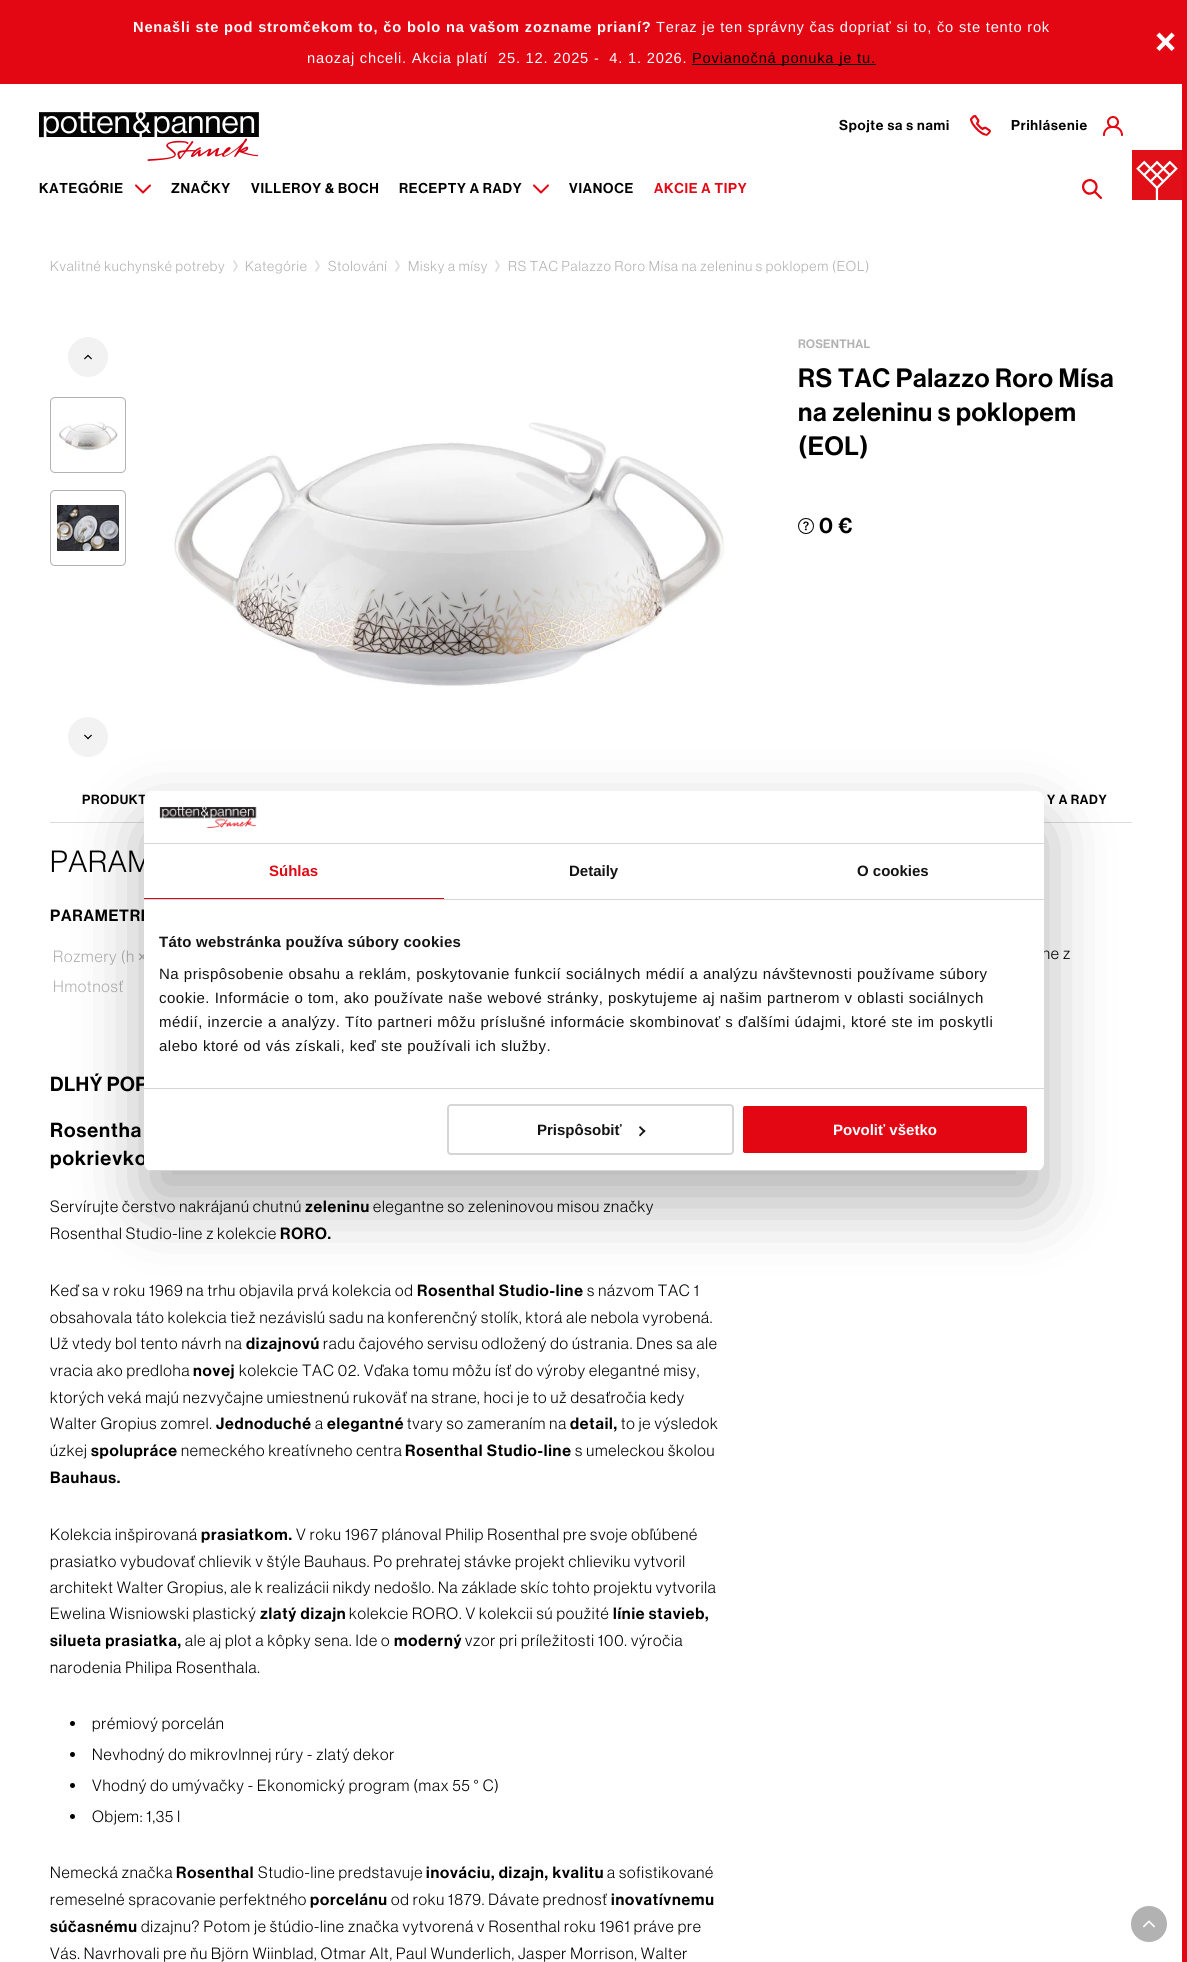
import math
import cairo

surface = cairo.ImageSurface(cairo.FORMAT_RGB24, 1187, 1962)
ctx = cairo.Context(surface)
options = cairo.FontOptions()
options.set_hint_metrics(cairo.HINT_METRICS_OFF)
options.set_hint_style(cairo.HINT_STYLE_NONE)
ctx.set_font_options(options)
ctx.set_miter_limit(4)


def spaced_text(x, y, s, letter, word):
    ctx.move_to(x, y)
    for ch in s:
        ctx.show_text(ch)
        ctx.rel_move_to(letter + word * (ch == ' '), 0)


def round_rect(x, y, w, h, r):
    ctx.new_sub_path()
    for i, (u, v) in enumerate([(x + w - r, y + h - r), (x + r, y + h - r), (x + r, y + r), (x + w - r, y + r)]):
        ctx.arc(u, v, r, i * math.pi / 2, (i + 1) * math.pi / 2)
    ctx.close_path()


def shadow(x, y, w, h, r, blur, alpha):
    ctx.push_group_with_content(cairo.CONTENT_ALPHA)
    ctx.set_operator(cairo.OPERATOR_SOURCE)
    for i in range(15, -16, -2):
        e = blur * i / 6
        if min(w, h) + 2 * e > 0:
            ctx.set_source_rgba(0, 0, 0, alpha * math.erfc((i - 1) / 8.5) / 2)
            round_rect(x - e, y - e, w + 2 * e, h + 2 * e, max(0, min(r + e + blur * .6, min(w, h) / 2 + e)))
            ctx.fill()
    ctx.mask(ctx.pop_group())


def picture(path, x, y, w, h):
    ctx.save()
    ctx.set_source_surface(cairo.ImageSurface.create_from_png(path), x, y)
    ctx.rectangle(x, y, w, h)
    ctx.fill()
    ctx.restore()


ctx.set_source_rgb(1, 1, 1)
ctx.paint()
ctx.set_source_rgb(0.89, 0.024, 0.075)
ctx.rectangle(0, 0, 1182, 84)
ctx.fill()
ctx.select_font_face("Liberation Sans", cairo.FONT_SLANT_NORMAL, cairo.FONT_WEIGHT_BOLD)
ctx.set_font_size(14.65)
ctx.set_source_rgb(1, 1, 1)
spaced_text(133, 32, "Nenašli ste pod stromčekom to, čo bolo na vašom zozname prianí?", 0.8, 0)
ctx.select_font_face("Liberation Sans")
spaced_text(656, 32, "Teraz je ten správny čas dopriať si to, čo ste tento rok", 0.8, 0)
spaced_text(307, 63, "naozaj chceli. Akcia platí  25. 12. 2025 -  4. 1. 2026.", 0.8, 0)
ctx.set_source_rgb(0, 0, 0)
ctx.rectangle(692, 64, 184, 1)
ctx.fill()
spaced_text(692, 63, "Povianočná ponuka je tu.", 0.8, 0)
ctx.select_font_face("Roboto SemiBold")
ctx.set_font_size(40)
ctx.set_source_rgb(1, 1, 1)
spaced_text(1155, 55, "×", 0.8, 0)
ctx.set_source_rgb(0.89, 0.024, 0.075)
ctx.rectangle(1182, 0, 5, 1962)
ctx.fill()
ctx.select_font_face("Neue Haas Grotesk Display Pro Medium")
ctx.set_font_size(14)
ctx.set_source_rgb(0, 0, 0)
spaced_text(839, 130, "Spojte sa s nami", 0.8, 0)
picture("img1.png", 970, 115, 21, 21)
spaced_text(1011, 130, "Prihlásenie", 0.8, 0)
picture("img2.png", 1103, 116, 20, 20)
picture("img3.png", 1082, 179, 20, 20)
picture("img4.png", 39, 112, 220, 49)
spaced_text(39, 193, "KATEGÓRIE", 0.75, 0)
picture("img5.png", 135, 184, 16, 10)
spaced_text(171, 193, "ZNAČKY", 0.75, 0)
spaced_text(251, 193, "VILLEROY & BOCH", 0.75, 0)
spaced_text(399, 193, "RECEPTY A RADY", 0.75, 0)
picture("img5.png", 533, 184, 16, 10)
spaced_text(569, 193, "VIANOCE", 0.75, 0)
ctx.set_source_rgb(0.89, 0.024, 0.075)
spaced_text(654, 193, "AKCIE A TIPY", 0.75, 0)
picture("img6.png", 1132, 150, 50, 50)
ctx.select_font_face("Neue Haas Grotesk Display Pro")
ctx.set_source_rgb(0.698, 0.698, 0.698)
spaced_text(50, 271, "Kvalitné kuchynské potreby", 0.8, 0)
ctx.new_path()
ctx.move_to(234, 261)
ctx.line_to(237, 266)
ctx.move_to(234, 271)
ctx.line_to(237, 266)
ctx.set_source_rgb(0.859, 0.859, 0.859)
ctx.set_line_width(1.6)
ctx.set_line_cap(cairo.LINE_CAP_ROUND)
ctx.stroke()
ctx.set_source_rgb(0.698, 0.698, 0.698)
spaced_text(245, 271, "Kategórie", 0.8, 0)
ctx.new_path()
ctx.move_to(316, 261)
ctx.line_to(319, 266)
ctx.move_to(316, 271)
ctx.line_to(319, 266)
ctx.set_source_rgb(0.859, 0.859, 0.859)
ctx.stroke()
ctx.set_source_rgb(0.698, 0.698, 0.698)
spaced_text(328, 271, "Stolování", 0.8, 0)
ctx.new_path()
ctx.move_to(396, 261)
ctx.line_to(399, 266)
ctx.move_to(396, 271)
ctx.line_to(399, 266)
ctx.set_source_rgb(0.859, 0.859, 0.859)
ctx.stroke()
ctx.set_source_rgb(0.698, 0.698, 0.698)
spaced_text(408, 271, "Misky a mísy", 0.8, 0)
ctx.new_path()
ctx.move_to(496, 261)
ctx.line_to(499, 266)
ctx.move_to(496, 271)
ctx.line_to(499, 266)
ctx.set_source_rgb(0.859, 0.859, 0.859)
ctx.stroke()
ctx.set_source_rgb(0.698, 0.698, 0.698)
spaced_text(508, 271, "RS TAC Palazzo Roro Mísa na zeleninu s poklopem (EOL)", 0.8, 0)
ctx.set_source_rgb(0.949, 0.949, 0.949)
ctx.new_path()
ctx.arc(88, 357, 20, 0, 2 * math.pi)
ctx.fill()
picture("img7.png", 84, 354, 8, 6)
ctx.arc(88, 737, 20, 0, 2 * math.pi)
ctx.fill()
picture("img8.png", 84, 734, 8, 6)
round_rect(50.5, 397.5, 75, 75, 4.5)
ctx.set_source_rgb(0.698, 0.698, 0.698)
ctx.set_line_width(1)
ctx.set_line_cap(cairo.LINE_CAP_BUTT)
ctx.stroke()
picture("img9.png", 57, 421, 61, 30)
round_rect(50.5, 490.5, 75, 75, 4.5)
ctx.stroke()
picture("img10.png", 57, 505, 62, 46)
picture("img11.png", 174, 422, 551, 265)
ctx.select_font_face("Neue Haas Grotesk Display Pro Medium")
ctx.set_font_size(12)
spaced_text(798, 348, "ROSENTHAL", 0.25, 0)
ctx.set_font_size(26)
ctx.set_source_rgb(0, 0, 0)
spaced_text(798, 387, "RS TAC Palazzo Roro Mísa", 0.65, 0)
spaced_text(798, 421, "na zeleninu s poklopem", 0.65, 0)
spaced_text(798, 455, "(EOL)", 0.65, 0)
picture("img12.png", 798, 518, 16, 16)
ctx.set_font_size(22)
spaced_text(819, 533, "0 €", 0.8, 0)
ctx.set_source_rgb(0.859, 0.859, 0.859)
ctx.rectangle(50, 822, 1082, 1)
ctx.fill()
ctx.set_font_size(13)
ctx.set_source_rgb(0, 0, 0)
spaced_text(82, 804, "PRODUKT", 0.65, 0)
spaced_text(1047, 804, "Y A RADY", 0.65, 0)
ctx.select_font_face("Neue Haas Grotesk Display Pro")
ctx.set_font_size(30)
spaced_text(50, 872, "PARAM", 0.75, 0)
ctx.select_font_face("Neue Haas Grotesk Display Pro Medium")
ctx.set_font_size(16)
spaced_text(50, 921, "PARAMETRE", 0.75, 0)
ctx.select_font_face("Neue Haas Grotesk Display Pro")
ctx.set_source_rgb(0.698, 0.698, 0.698)
spaced_text(53, 962, "Rozmery (h", 0.8, 0)
ctx.select_font_face("Roboto")
spaced_text(138, 962, "×", 0.8, 0)
ctx.select_font_face("Neue Haas Grotesk Display Pro")
spaced_text(53, 992, "Hmotnosť", 0.8, 0)
ctx.set_source_rgb(0, 0, 0)
spaced_text(1042, 959, "ne z", 0.8, 0)
ctx.select_font_face("Neue Haas Grotesk Display Pro Medium")
ctx.set_font_size(20)
spaced_text(50, 1091, "DLHÝ POP", 0.5, 0)
spaced_text(50, 1137, "Rosentha", 1, 0)
spaced_text(50, 1165, "pokrievko", 1, 0)
ctx.select_font_face("Neue Haas Grotesk Display Pro")
ctx.set_font_size(16)
spaced_text(50, 1212, "Servírujte čerstvo nakrájanú chutnú", 0.8, 0)
ctx.select_font_face("Neue Haas Grotesk Display Pro Medium")
spaced_text(305, 1212, "zeleninu", 0.8, 0)
ctx.select_font_face("Neue Haas Grotesk Display Pro")
spaced_text(373, 1212, "elegantne so zeleninovou misou značky", 0.8, 0)
spaced_text(50, 1239, "Rosenthal Studio-line z kolekcie", 0.8, 0)
ctx.select_font_face("Neue Haas Grotesk Display Pro Medium")
spaced_text(280, 1239, "RORO.", 0.8, 0)
ctx.select_font_face("Neue Haas Grotesk Display Pro")
spaced_text(50, 1296, "Keď sa v roku 1969 na trhu objavila prvá kolekcia od", 0.8, 0)
ctx.select_font_face("Neue Haas Grotesk Display Pro Medium")
spaced_text(417, 1296, "Rosenthal Studio-line", 0.8, 0)
ctx.select_font_face("Neue Haas Grotesk Display Pro")
spaced_text(587, 1296, "s názvom TAC 1", 0.8, 0)
spaced_text(50, 1323, "obsahovala táto kolekcia tiež nezávislú sadu na konferenčný stolík, ktorá ale nebola vyrobená.", 0.8, 0)
spaced_text(50, 1349, "Už vtedy bol tento návrh na", 0.8, 0)
ctx.select_font_face("Neue Haas Grotesk Display Pro Medium")
spaced_text(246, 1349, "dizajnovú", 0.8, 0)
ctx.select_font_face("Neue Haas Grotesk Display Pro")
spaced_text(323, 1349, "radu čajového servisu odložený do ústrania. Dnes sa ale", 0.8, 0)
spaced_text(50, 1376, "vracia ako predloha", 0.8, 0)
ctx.select_font_face("Neue Haas Grotesk Display Pro Medium")
spaced_text(193, 1376, "novej", 0.8, 0)
ctx.select_font_face("Neue Haas Grotesk Display Pro")
spaced_text(239, 1376, "kolekcie TAC 02. Vďaka tomu môžu ísť do výroby elegantné misy,", 0.8, 0)
spaced_text(50, 1403, "ktorých veká majú nezvyčajne umiestnenú rukoväť na strane, hoci je to už desaťročia kedy", 0.8, 0)
spaced_text(50, 1429, "Walter Gropius zomrel.", 0.8, 0)
ctx.select_font_face("Neue Haas Grotesk Display Pro Medium")
spaced_text(216, 1429, "Jednoduché", 0.8, 0)
ctx.select_font_face("Neue Haas Grotesk Display Pro")
spaced_text(315, 1429, "a", 0.8, 0)
ctx.select_font_face("Neue Haas Grotesk Display Pro Medium")
spaced_text(327, 1429, "elegantné", 0.8, 0)
ctx.select_font_face("Neue Haas Grotesk Display Pro")
spaced_text(407, 1429, "tvary so zameraním na", 0.8, 0)
ctx.select_font_face("Neue Haas Grotesk Display Pro Medium")
spaced_text(570, 1429, "detail,", 0.8, 0)
ctx.select_font_face("Neue Haas Grotesk Display Pro")
spaced_text(621, 1429, "to je výsledok", 0.8, 0)
spaced_text(50, 1456, "úzkej", 0.8, 0)
ctx.select_font_face("Neue Haas Grotesk Display Pro Medium")
spaced_text(91, 1456, "spolupráce", 0.8, 0)
ctx.select_font_face("Neue Haas Grotesk Display Pro")
spaced_text(181, 1456, "nemeckého kreatívneho centra", 0.8, 0)
ctx.select_font_face("Neue Haas Grotesk Display Pro Medium")
spaced_text(405, 1456, "Rosenthal Studio-line", 0.8, 0)
ctx.select_font_face("Neue Haas Grotesk Display Pro")
spaced_text(575, 1456, "s umeleckou školou", 0.8, 0)
ctx.select_font_face("Neue Haas Grotesk Display Pro Medium")
spaced_text(50, 1483, "Bauhaus.", 0.8, 0)
ctx.select_font_face("Neue Haas Grotesk Display Pro")
spaced_text(50, 1540, "Kolekcia inšpirovaná", 0.8, 0)
ctx.select_font_face("Neue Haas Grotesk Display Pro Medium")
spaced_text(201, 1540, "prasiatkom.", 0.8, 0)
ctx.select_font_face("Neue Haas Grotesk Display Pro")
spaced_text(296, 1540, "V roku 1967 plánoval Philip Rosenthal pre svoje obľúbené", 0.8, 0)
spaced_text(50, 1567, "prasiatko vybudovať chlievik v štýle Bauhaus. Po prehratej stávke projekt chlieviku vytvoril", 0.8, 0)
spaced_text(50, 1593, "architekt Walter Gropius, ale k realizácii nikdy nedošlo. Na základe skíc tohto projektu vytvorila", 0.8, 0)
spaced_text(50, 1619, "Ewelina Wisniowski plastický", 0.8, 0)
ctx.select_font_face("Neue Haas Grotesk Display Pro Medium")
spaced_text(260, 1619, "zlatý dizajn", 0.8, 0)
ctx.select_font_face("Neue Haas Grotesk Display Pro")
spaced_text(349, 1619, "kolekcie RORO. V kolekcii sú použité", 0.8, 0)
ctx.select_font_face("Neue Haas Grotesk Display Pro Medium")
spaced_text(613, 1619, "línie stavieb,", 0.8, 0)
spaced_text(50, 1646, "silueta prasiatka,", 0.8, 0)
ctx.select_font_face("Neue Haas Grotesk Display Pro")
spaced_text(185, 1646, "ale aj plot a kôpky sena. Ide o", 0.8, 0)
ctx.select_font_face("Neue Haas Grotesk Display Pro Medium")
spaced_text(394, 1646, "moderný", 0.8, 0)
ctx.select_font_face("Neue Haas Grotesk Display Pro")
spaced_text(465, 1646, "vzor pri príležitosti 100. výročia", 0.8, 0)
spaced_text(50, 1673, "narodenia Philipa Rosenthala.", 0.8, 0)
ctx.new_path()
ctx.arc(72.5, 1723.5, 2.5, 0, 2 * math.pi)
ctx.fill()
spaced_text(92, 1729, "prémiový porcelán", 0.8, 0)
ctx.new_path()
ctx.arc(72.5, 1754.5, 2.5, 0, 2 * math.pi)
ctx.fill()
spaced_text(92, 1760, "Nevhodný do mikrovlnnej rúry - zlatý dekor", 0.8, 0)
ctx.new_path()
ctx.arc(72.5, 1785.5, 2.5, 0, 2 * math.pi)
ctx.fill()
spaced_text(92, 1791, "Vhodný do umývačky - Ekonomický program (max 55 ° C)", 0.8, 0)
ctx.new_path()
ctx.arc(72.5, 1816.5, 2.5, 0, 2 * math.pi)
ctx.fill()
spaced_text(92, 1822, "Objem: 1,35 l", 0.8, 0)
spaced_text(50, 1878, "Nemecká značka", 0.8, 0)
ctx.select_font_face("Neue Haas Grotesk Display Pro Medium")
spaced_text(176, 1878, "Rosenthal", 0.8, 0)
ctx.select_font_face("Neue Haas Grotesk Display Pro")
spaced_text(258, 1878, "Studio-line predstavuje", 0.8, 0)
ctx.select_font_face("Neue Haas Grotesk Display Pro Medium")
spaced_text(426, 1878, "inováciu, dizajn, kvalitu", 0.8, 0)
ctx.select_font_face("Neue Haas Grotesk Display Pro")
spaced_text(607, 1878, "a sofistikované", 0.8, 0)
spaced_text(50, 1905, "remeselné spracovanie perfektného", 0.8, 0)
ctx.select_font_face("Neue Haas Grotesk Display Pro Medium")
spaced_text(310, 1905, "porcelánu", 0.8, 0)
ctx.select_font_face("Neue Haas Grotesk Display Pro")
spaced_text(391, 1905, "od roku 1879. Dávate prednosť", 0.8, 0)
ctx.select_font_face("Neue Haas Grotesk Display Pro Medium")
spaced_text(611, 1905, "inovatívnemu", 0.8, 0)
spaced_text(50, 1932, "súčasnému", 0.8, 0)
ctx.select_font_face("Neue Haas Grotesk Display Pro")
spaced_text(141, 1932, "dizajnu? Potom je štúdio-line značka vytvorená v Rosenthal roku 1961 práve pre", 0.8, 0)
spaced_text(50, 1959, "Vás. Navrhovali pre ňu Björn Wiinblad, Otmar Alt, Paul Wunderlich, Jasper Morrison, Walter", 0.8, 0)
ctx.set_source_rgb(0, 0, 0)
shadow(144, 823, 900, 380, 8, 34, 0.3)
ctx.set_source_rgb(1, 1, 1)
round_rect(144, 791, 900, 380, 8)
ctx.fill()
ctx.set_source_rgb(0.839, 0.839, 0.839)
ctx.rectangle(144, 843, 900, 1)
ctx.fill()
picture("img13.png", 159, 806, 98, 22)
ctx.rectangle(144, 899, 900, 1)
ctx.fill()
ctx.set_source_rgb(0.89, 0.024, 0.075)
ctx.rectangle(144, 898, 300, 1)
ctx.fill()
ctx.select_font_face("Liberation Sans", cairo.FONT_SLANT_NORMAL, cairo.FONT_WEIGHT_BOLD)
ctx.set_font_size(15)
ctx.move_to(269, 876)
ctx.show_text("Súhlas")
ctx.set_source_rgb(0.078, 0.078, 0.078)
ctx.move_to(569, 876)
ctx.show_text("Detaily")
ctx.move_to(857, 876)
ctx.show_text("O cookies")
ctx.set_source_rgb(0.839, 0.839, 0.839)
ctx.rectangle(144, 1088, 900, 1)
ctx.fill()
ctx.set_source_rgb(0.078, 0.078, 0.078)
spaced_text(159, 947, "Táto webstránka používa súbory cookies", 0.25, 0)
ctx.select_font_face("Liberation Sans")
spaced_text(159, 979, "Na prispôsobenie obsahu a reklám, poskytovanie funkcií sociálnych médií a analýzu návštevnosti používame súbory", 0.5, 0)
spaced_text(159, 1003, "cookie. Informácie o tom, ako používate naše webové stránky, poskytujeme aj našim partnerom v oblasti sociálnych", 0.5, 0)
spaced_text(159, 1027, "médií, inzercie a analýzy. Títo partneri môžu príslušné informácie skombinovať s ďalšími údajmi, ktoré ste im poskytli", 0.5, 0)
spaced_text(159, 1051, "alebo ktoré od vás získali, keď ste používali ich služby.", 0.5, 0)
ctx.save()
round_rect(144, 791, 900, 380, 8)
ctx.clip()
ctx.set_source_rgb(0.839, 0.839, 0.839)
ctx.rectangle(144, 1170, 900, 1)
ctx.fill()
ctx.restore()
round_rect(448, 1105, 285, 49, 3)
ctx.set_source_rgb(0.839, 0.839, 0.839)
ctx.set_line_width(2)
ctx.stroke()
ctx.select_font_face("Liberation Sans", cairo.FONT_SLANT_NORMAL, cairo.FONT_WEIGHT_BOLD)
ctx.set_source_rgb(0.078, 0.078, 0.078)
ctx.move_to(537, 1135)
ctx.show_text("Prispôsobiť")
ctx.new_path()
ctx.move_to(640, 1126)
ctx.line_to(645.5, 1131)
ctx.line_to(644, 1132.5)
ctx.line_to(639, 1127.5)
ctx.close_path()
ctx.fill()
ctx.new_path()
ctx.move_to(644, 1130)
ctx.line_to(645.5, 1131)
ctx.line_to(640, 1136.5)
ctx.line_to(639, 1135)
ctx.close_path()
ctx.fill()
ctx.set_source_rgb(0.89, 0.024, 0.075)
round_rect(742, 1105, 286, 49, 3)
ctx.fill_preserve()
ctx.set_source_rgb(1, 1, 1)
ctx.stroke()
ctx.move_to(833, 1135)
ctx.show_text("Povoliť všetko")
ctx.set_source_rgb(0.698, 0.698, 0.698)
ctx.new_path()
ctx.arc(1149, 1924, 18, 0, 2 * math.pi)
ctx.fill()
picture("img14.png", 1143, 1920, 12, 8)
surface.write_to_png("page.png")
